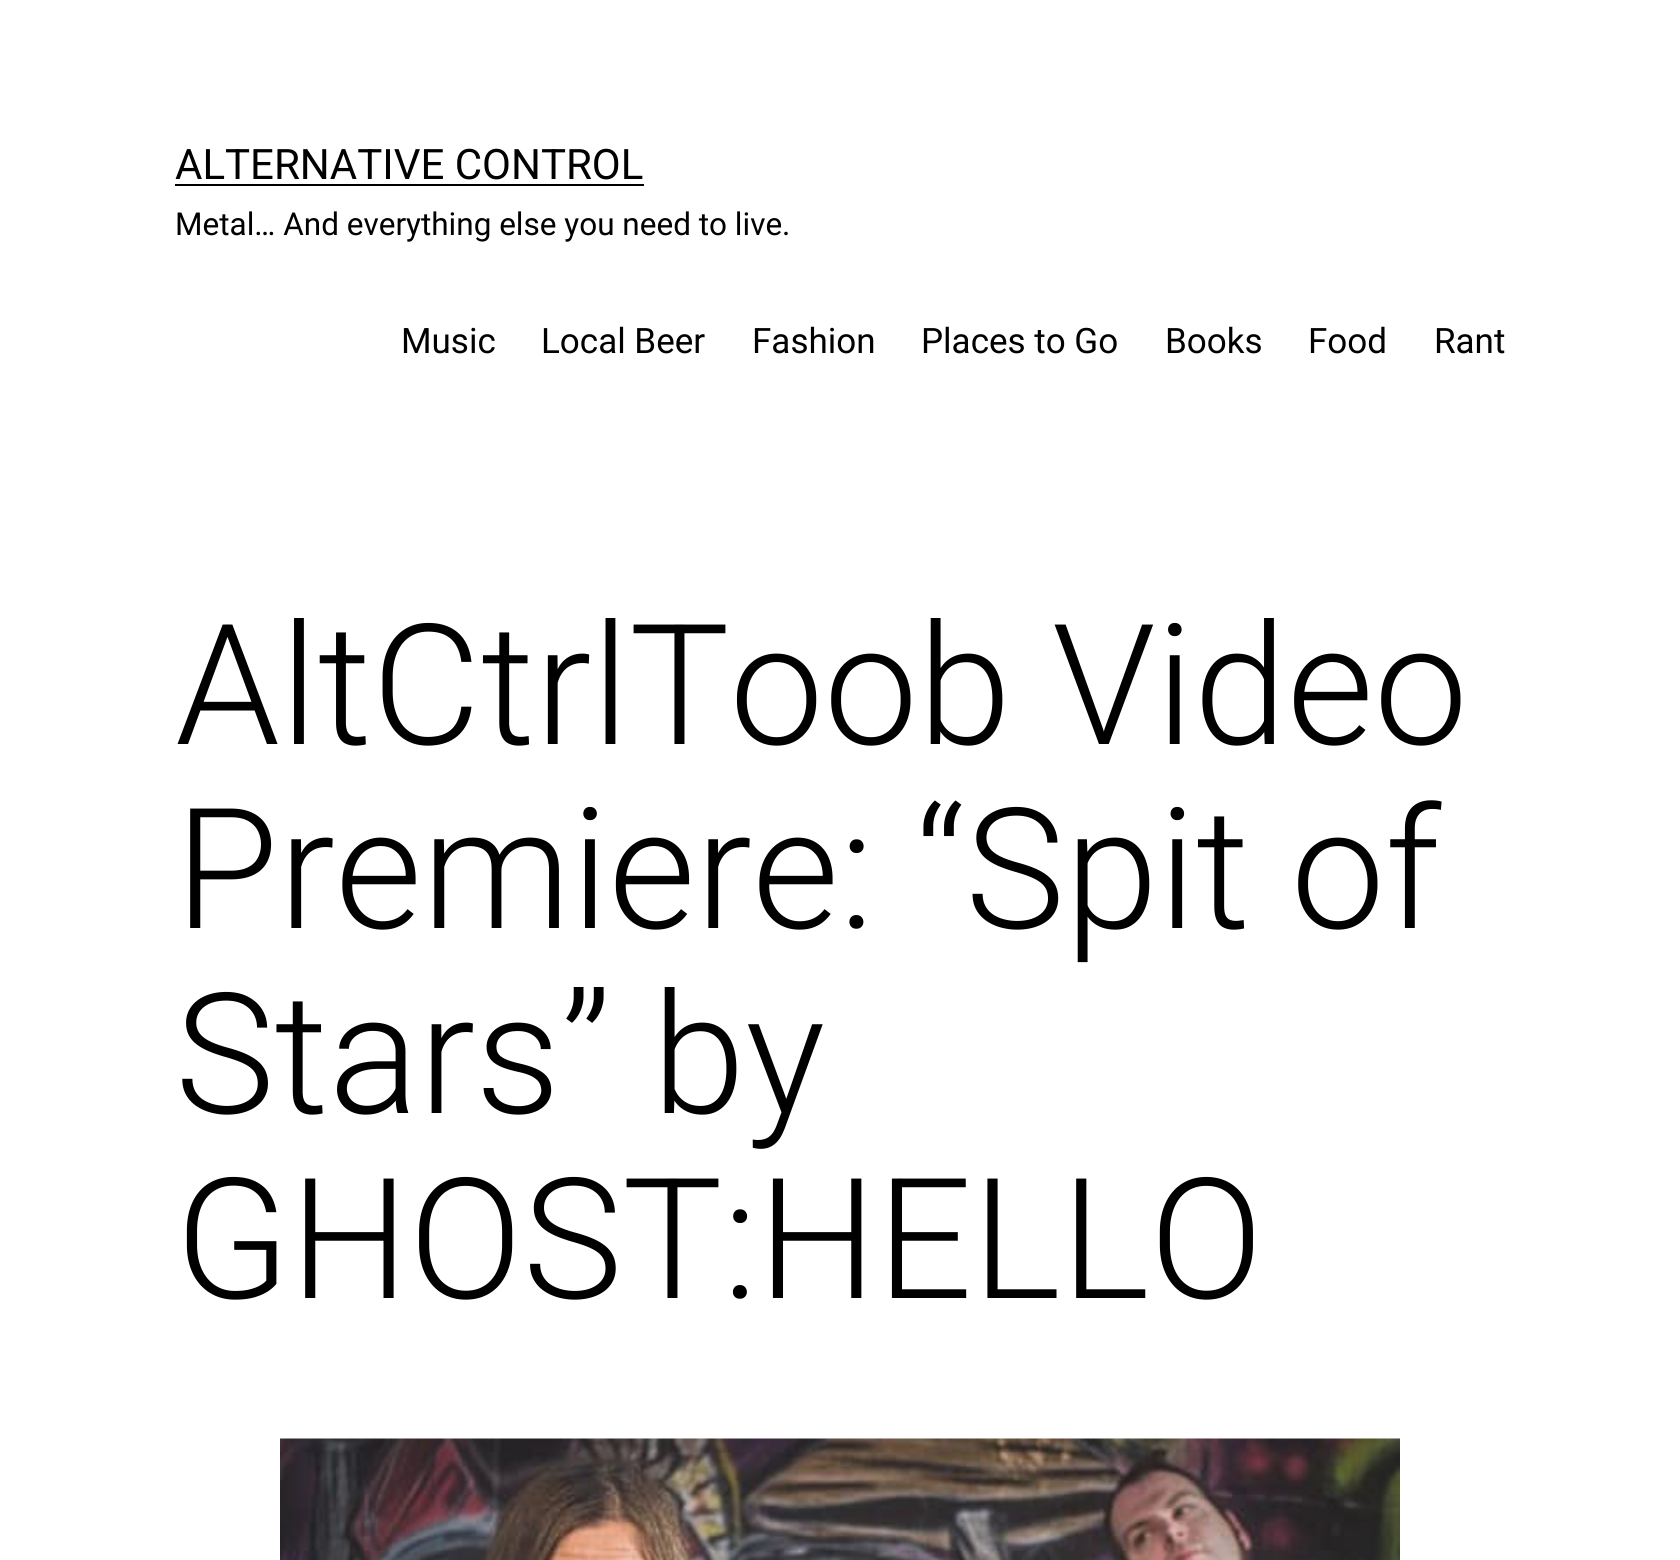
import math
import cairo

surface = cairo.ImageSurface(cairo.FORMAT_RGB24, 1680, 1560)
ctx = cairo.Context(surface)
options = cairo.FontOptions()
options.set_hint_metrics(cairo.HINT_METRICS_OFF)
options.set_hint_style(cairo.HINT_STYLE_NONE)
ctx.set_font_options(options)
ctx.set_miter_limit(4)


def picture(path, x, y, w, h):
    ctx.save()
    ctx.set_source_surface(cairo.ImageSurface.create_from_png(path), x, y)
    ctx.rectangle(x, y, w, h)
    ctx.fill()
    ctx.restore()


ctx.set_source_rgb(1, 1, 1)
ctx.paint()
ctx.select_font_face("Roboto")
ctx.set_font_size(42)
ctx.set_source_rgb(0, 0, 0)
ctx.move_to(175, 179)
ctx.show_text("ALTERNATIVE CONTROL")
ctx.rectangle(175, 184, 469, 2)
ctx.fill()
ctx.set_font_size(31.5)
ctx.move_to(175, 235)
ctx.show_text("Metal… And everything else you need to live.")
ctx.set_font_size(35)
ctx.move_to(401, 353)
ctx.show_text("Music")
ctx.move_to(541, 353)
ctx.show_text("Local Beer")
ctx.move_to(752, 353)
ctx.show_text("Fashion")
ctx.move_to(921, 353)
ctx.show_text("Places to Go")
ctx.move_to(1165, 353)
ctx.show_text("Books")
ctx.move_to(1308, 353)
ctx.show_text("Food")
ctx.move_to(1434, 353)
ctx.show_text("Rant")
ctx.select_font_face("Roboto Light")
ctx.set_font_size(168)
ctx.move_to(175, 744)
ctx.show_text("AltCtrlToob Video")
ctx.move_to(175, 928)
ctx.show_text("Premiere: “Spit of")
ctx.move_to(175, 1113)
ctx.show_text("Stars” by")
ctx.move_to(175, 1298)
ctx.show_text("GHOST:HELLO")
picture("img1.png", 280, 1438, 1120, 122)
surface.write_to_png("page.png")
